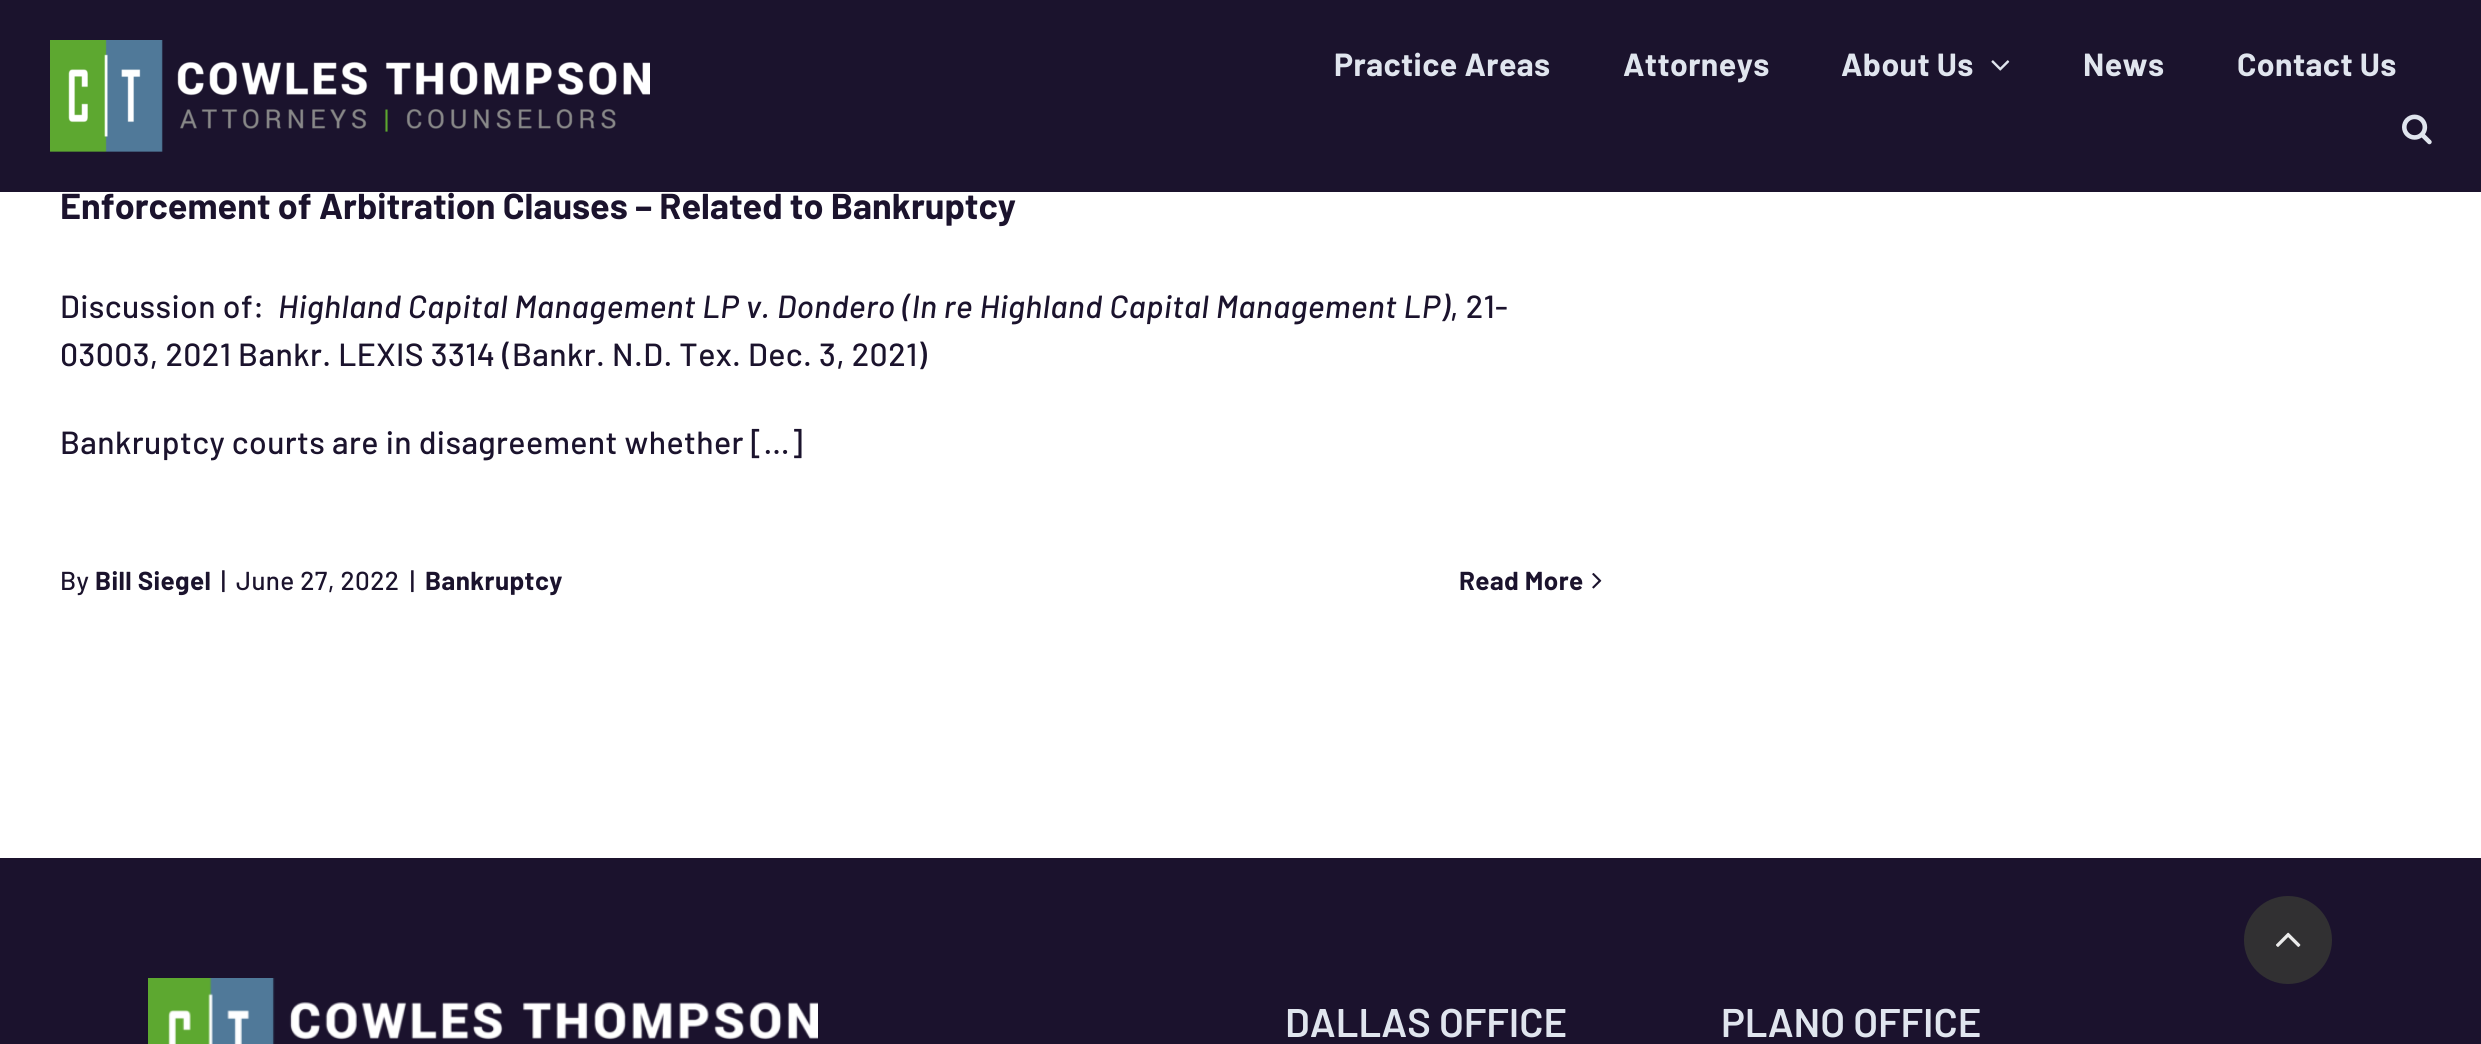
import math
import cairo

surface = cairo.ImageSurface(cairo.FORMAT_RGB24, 2481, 1044)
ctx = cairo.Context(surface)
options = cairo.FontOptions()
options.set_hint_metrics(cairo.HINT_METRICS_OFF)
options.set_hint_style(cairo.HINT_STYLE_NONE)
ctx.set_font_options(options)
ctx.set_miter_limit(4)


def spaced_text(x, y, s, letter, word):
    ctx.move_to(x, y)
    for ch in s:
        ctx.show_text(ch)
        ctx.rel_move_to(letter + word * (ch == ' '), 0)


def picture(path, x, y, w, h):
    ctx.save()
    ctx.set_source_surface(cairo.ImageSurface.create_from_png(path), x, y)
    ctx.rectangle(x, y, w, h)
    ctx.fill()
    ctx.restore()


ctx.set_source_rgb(1, 1, 1)
ctx.paint()
ctx.set_source_rgb(0.106, 0.075, 0.176)
ctx.rectangle(0, 0, 2481, 192)
ctx.fill()
picture("img1.png", 50, 40, 600, 112)
ctx.select_font_face("Barlow", cairo.FONT_SLANT_NORMAL, cairo.FONT_WEIGHT_BOLD)
ctx.set_font_size(32)
ctx.set_source_rgb(0.878, 0.898, 0.933)
spaced_text(1334, 76, "Practice Areas", 0.4, 0)
spaced_text(1623, 76, "Attorneys", 0.4, 0)
spaced_text(1841, 76, "About Us", 0.4, 0)
picture("img2.png", 1991, 60, 19, 11)
spaced_text(2083, 76, "News", 0.4, 0)
spaced_text(2237, 76, "Contact Us", 0.4, 0)
picture("img3.png", 2402, 114, 30, 31)
ctx.set_font_size(36)
ctx.set_source_rgb(0.106, 0.075, 0.176)
ctx.move_to(60, 219)
ctx.show_text("Enforcement of Arbitration Clauses – Related to Bankruptcy")
ctx.select_font_face("Barlow Medium")
ctx.set_font_size(32)
spaced_text(60, 318, "Discussion of:", 0.4, 0)
ctx.select_font_face("Barlow Medium", cairo.FONT_SLANT_ITALIC)
spaced_text(278, 318, "Highland Capital Management LP v. Dondero (In re Highland Capital Management LP)", 0.4, 0)
ctx.select_font_face("Barlow Medium")
spaced_text(1450, 318, ", 21-", 0.4, 0)
spaced_text(60, 366, "03003, 2021 Bankr. LEXIS 3314 (Bankr. N.D. Tex. Dec. 3, 2021)", 0.4, 0)
spaced_text(60, 454, "Bankruptcy courts are in disagreement whether […]", 0.4, 0)
ctx.set_font_size(26)
spaced_text(60, 590, "By", 0.4, 0)
ctx.select_font_face("Barlow", cairo.FONT_SLANT_NORMAL, cairo.FONT_WEIGHT_BOLD)
spaced_text(95, 590, "Bill Siegel", 0.4, 0)
ctx.select_font_face("Barlow Medium")
spaced_text(221, 590, "|", 0.4, 0)
spaced_text(236, 590, "June 27, 2022", 0.4, 0)
spaced_text(410, 590, "|", 0.4, 0)
ctx.select_font_face("Barlow", cairo.FONT_SLANT_NORMAL, cairo.FONT_WEIGHT_BOLD)
spaced_text(425, 590, "Bankruptcy", 0.4, 0)
spaced_text(1459, 590, "Read More", 0.4, 0)
picture("img4.png", 1592, 573, 10, 16)
ctx.set_source_rgb(0.106, 0.071, 0.176)
ctx.rectangle(0, 858, 2481, 186)
ctx.fill()
picture("img5.png", 148, 978, 670, 66)
ctx.select_font_face("Barlow SemiBold")
ctx.set_font_size(40)
ctx.set_source_rgb(0.878, 0.898, 0.933)
ctx.move_to(1285, 1037)
ctx.show_text("DALLAS OFFICE")
ctx.move_to(1721, 1037)
ctx.show_text("PLANO OFFICE")
ctx.set_source_rgb(0.192, 0.188, 0.196)
ctx.new_path()
ctx.arc(2288, 940, 44, 0, 2 * math.pi)
ctx.fill()
picture("img6.png", 2276, 932, 25, 15)
surface.write_to_png("page.png")
